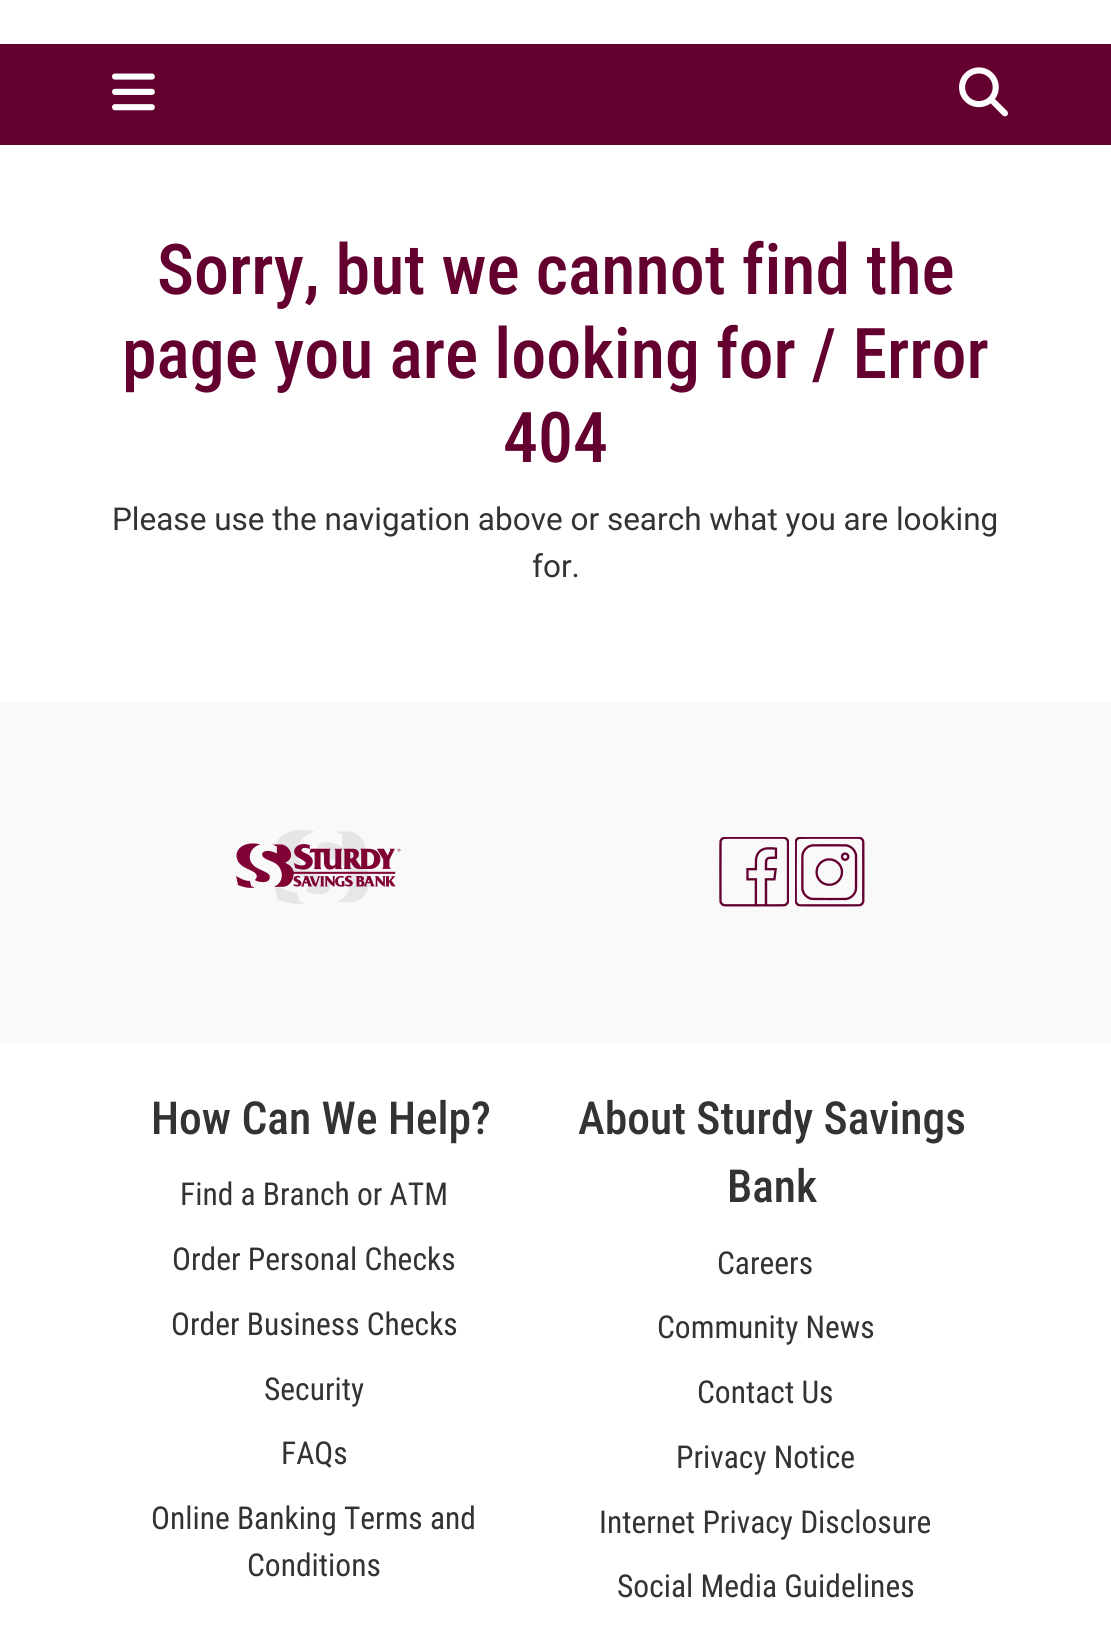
import math
import cairo

surface = cairo.ImageSurface(cairo.FORMAT_RGB24, 1111, 1625)
ctx = cairo.Context(surface)
options = cairo.FontOptions()
options.set_hint_metrics(cairo.HINT_METRICS_OFF)
options.set_hint_style(cairo.HINT_STYLE_NONE)
ctx.set_font_options(options)
ctx.set_miter_limit(4)


def picture(path, x, y, w, h):
    ctx.save()
    ctx.set_source_surface(cairo.ImageSurface.create_from_png(path), x, y)
    ctx.rectangle(x, y, w, h)
    ctx.fill()
    ctx.restore()


ctx.set_source_rgb(1, 1, 1)
ctx.paint()
ctx.set_source_rgb(0.392, 0, 0.184)
ctx.rectangle(0, 44, 1111, 101)
ctx.fill()
picture("img1.png", 112, 73, 43, 38)
picture("img2.png", 959, 67, 49, 50)
ctx.select_font_face("Roboto Condensed Medium")
ctx.set_font_size(70)
ctx.move_to(157, 294)
ctx.show_text("Sorry, but we cannot find the")
ctx.move_to(122, 378)
ctx.show_text("page you are looking for / Error")
ctx.move_to(503, 462)
ctx.show_text("404")
ctx.select_font_face("Roboto")
ctx.set_font_size(31.5)
ctx.set_source_rgb(0.2, 0.2, 0.2)
ctx.move_to(112, 530)
ctx.show_text("Please use the navigation above or search what you are looking")
ctx.move_to(532, 577)
ctx.show_text("for.")
ctx.set_source_rgb(0.976, 0.976, 0.976)
ctx.rectangle(0, 702, 1111, 341)
ctx.fill()
picture("img3.png", 236, 830, 165, 74)
picture("img4.png", 719, 837, 70, 70)
picture("img5.png", 795, 837, 70, 70)
ctx.select_font_face("Roboto Condensed Medium")
ctx.set_font_size(45.5)
ctx.set_source_rgb(0.2, 0.2, 0.2)
ctx.move_to(151, 1134)
ctx.show_text("How Can We Help?")
ctx.select_font_face("Roboto Condensed")
ctx.set_font_size(31.5)
ctx.move_to(180, 1205)
ctx.show_text("Find a Branch or ATM")
ctx.move_to(172, 1270)
ctx.show_text("Order Personal Checks")
ctx.move_to(171, 1335)
ctx.show_text("Order Business Checks")
ctx.move_to(264, 1400)
ctx.show_text("Security")
ctx.move_to(281, 1464)
ctx.show_text("FAQs")
ctx.move_to(151, 1529)
ctx.show_text("Online Banking Terms and")
ctx.move_to(247, 1576)
ctx.show_text("Conditions")
ctx.select_font_face("Roboto Condensed Medium")
ctx.set_font_size(45.5)
ctx.move_to(578, 1134)
ctx.show_text("About Sturdy Savings")
ctx.move_to(727, 1202)
ctx.show_text("Bank")
ctx.select_font_face("Roboto Condensed")
ctx.set_font_size(31.5)
ctx.move_to(717, 1274)
ctx.show_text("Careers")
ctx.move_to(657, 1338)
ctx.show_text("Community News")
ctx.move_to(697, 1403)
ctx.show_text("Contact Us")
ctx.move_to(676, 1468)
ctx.show_text("Privacy Notice")
ctx.move_to(599, 1533)
ctx.show_text("Internet Privacy Disclosure")
ctx.move_to(617, 1597)
ctx.show_text("Social Media Guidelines")
surface.write_to_png("page.png")
